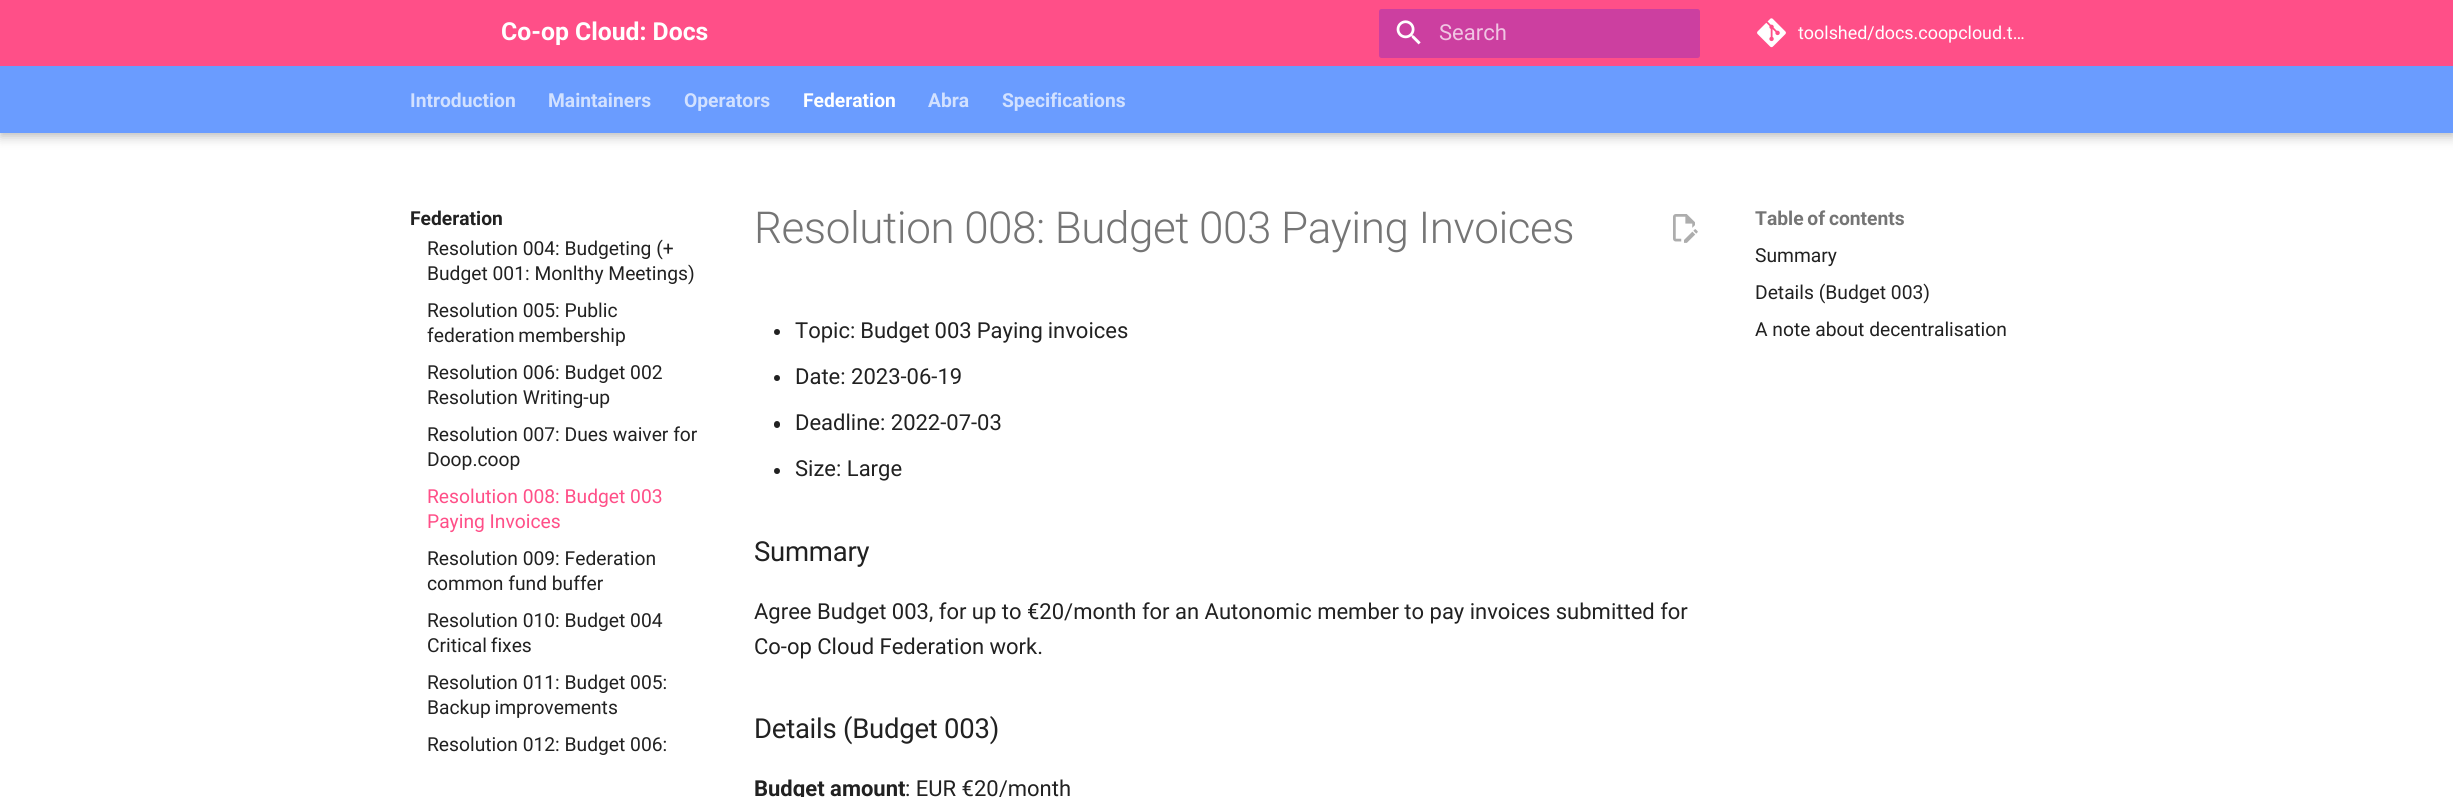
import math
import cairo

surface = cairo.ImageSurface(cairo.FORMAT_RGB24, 2453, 797)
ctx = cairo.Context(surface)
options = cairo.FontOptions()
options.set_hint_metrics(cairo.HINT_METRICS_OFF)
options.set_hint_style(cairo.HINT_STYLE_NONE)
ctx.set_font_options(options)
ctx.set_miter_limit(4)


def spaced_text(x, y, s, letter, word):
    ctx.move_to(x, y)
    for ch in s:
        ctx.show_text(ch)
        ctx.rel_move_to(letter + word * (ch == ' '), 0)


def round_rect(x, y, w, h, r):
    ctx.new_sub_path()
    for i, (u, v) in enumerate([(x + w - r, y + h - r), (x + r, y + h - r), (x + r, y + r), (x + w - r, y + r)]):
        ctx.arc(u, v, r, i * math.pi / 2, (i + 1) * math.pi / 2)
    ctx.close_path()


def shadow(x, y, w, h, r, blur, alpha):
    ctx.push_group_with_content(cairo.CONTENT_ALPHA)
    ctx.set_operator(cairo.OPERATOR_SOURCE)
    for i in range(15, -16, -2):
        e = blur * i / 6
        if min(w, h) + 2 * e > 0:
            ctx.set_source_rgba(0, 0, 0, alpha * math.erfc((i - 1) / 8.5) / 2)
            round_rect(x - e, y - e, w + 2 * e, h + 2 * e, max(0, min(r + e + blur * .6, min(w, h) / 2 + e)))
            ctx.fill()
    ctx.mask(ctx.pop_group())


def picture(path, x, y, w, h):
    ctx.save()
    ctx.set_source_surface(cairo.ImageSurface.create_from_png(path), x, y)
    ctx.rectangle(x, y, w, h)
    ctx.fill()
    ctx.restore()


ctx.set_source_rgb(1, 1, 1)
ctx.paint()
ctx.set_source_rgb(0, 0, 0)
shadow(0, 5, 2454, 133, 0, 5.5, 0.2)
shadow(0, 0, 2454, 133, 0, 3, 0.1)
ctx.set_source_rgb(1, 0.31, 0.533)
ctx.rectangle(0, 0, 2453, 66)
ctx.fill()
ctx.select_font_face("Roboto", cairo.FONT_SLANT_NORMAL, cairo.FONT_WEIGHT_BOLD)
ctx.set_font_size(24.75)
ctx.set_source_rgb(1, 1, 1)
ctx.move_to(501, 40)
ctx.show_text("Co-op Cloud: Docs")
ctx.set_source_rgb(0.8, 0.247, 0.627)
round_rect(1379, 9, 321, 49, 2.5)
ctx.fill()
picture("img1.png", 1396, 20, 25, 25)
ctx.select_font_face("Roboto")
ctx.set_font_size(22)
ctx.set_source_rgb(0.941, 0.773, 0.89)
ctx.move_to(1439, 40)
ctx.show_text("Search")
picture("img2.png", 1757, 18, 29, 30)
ctx.set_font_size(17.9)
ctx.set_source_rgb(1, 1, 1)
ctx.move_to(1798, 39)
ctx.show_text("toolshed/docs.coopcloud.t…")
ctx.set_source_rgb(0.416, 0.612, 1)
ctx.rectangle(0, 66, 2453, 67)
ctx.fill()
ctx.select_font_face("Roboto", cairo.FONT_SLANT_NORMAL, cairo.FONT_WEIGHT_BOLD)
ctx.set_font_size(19.25)
ctx.set_source_rgb(0.824, 0.882, 1)
ctx.move_to(410, 107)
ctx.show_text("Introduction")
ctx.move_to(548, 107)
ctx.show_text("Maintainers")
ctx.move_to(684, 107)
ctx.show_text("Operators")
ctx.set_source_rgb(1, 1, 1)
ctx.move_to(803, 107)
ctx.show_text("Federation")
ctx.set_source_rgb(0.824, 0.882, 1)
ctx.move_to(928, 107)
ctx.show_text("Abra")
ctx.move_to(1002, 107)
ctx.show_text("Specifications")
ctx.save()
ctx.rectangle(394, 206, 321, 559)
ctx.clip()
ctx.set_source_rgb(1, 1, 1)
shadow(399, 195, 311, 48, 0, 5.5, 1)
ctx.restore()
ctx.set_source_rgb(0.129, 0.129, 0.129)
ctx.move_to(410, 225)
ctx.show_text("Federation")
ctx.select_font_face("Roboto")
ctx.move_to(427, 255)
ctx.show_text("Resolution 004: Budgeting (+")
ctx.move_to(427, 280)
ctx.show_text("Budget 001: Monlthy Meetings)")
ctx.move_to(427, 317)
ctx.show_text("Resolution 005: Public")
spaced_text(427, 342, "federation membership", 0, -1)
ctx.move_to(427, 379)
ctx.show_text("Resolution 006: Budget 002")
ctx.move_to(427, 404)
ctx.show_text("Resolution Writing-up")
ctx.move_to(427, 441)
ctx.show_text("Resolution 007: Dues waiver for")
ctx.move_to(427, 466)
ctx.show_text("Doop.coop")
ctx.set_source_rgb(1, 0.31, 0.533)
ctx.move_to(427, 503)
ctx.show_text("Resolution 008: Budget 003")
ctx.move_to(427, 528)
ctx.show_text("Paying Invoices")
ctx.set_source_rgb(0.129, 0.129, 0.129)
ctx.move_to(427, 565)
ctx.show_text("Resolution 009: Federation")
ctx.move_to(427, 590)
ctx.show_text("common fund buffer")
ctx.move_to(427, 627)
ctx.show_text("Resolution 010: Budget 004")
spaced_text(427, 652, "Critical fixes", 0, -1)
ctx.move_to(427, 689)
ctx.show_text("Resolution 011: Budget 005:")
spaced_text(427, 714, "Backup improvements", 0, -1)
ctx.move_to(427, 751)
ctx.show_text("Resolution 012: Budget 006:")
ctx.select_font_face("Roboto Light")
ctx.set_font_size(44)
ctx.set_source_rgb(0.459, 0.459, 0.459)
spaced_text(754, 243, "Resolution 008: Budget 003 Paying Invoices", -0.45, -0.25)
picture("img3.png", 1673, 214, 25, 29)
ctx.set_source_rgb(0.129, 0.129, 0.129)
ctx.arc(777, 332, 3, 0, 2 * math.pi)
ctx.fill()
ctx.select_font_face("Roboto")
ctx.set_font_size(22)
spaced_text(795, 338, "Topic: Budget 003 Paying invoices", 0, -0.5)
ctx.new_path()
ctx.arc(777, 378, 3, 0, 2 * math.pi)
ctx.fill()
ctx.move_to(795, 384)
ctx.show_text("Date: 2023-06-19")
round_rect(774, 421, 6, 7, 3)
ctx.fill()
ctx.move_to(795, 430)
ctx.show_text("Deadline: 2022-07-03")
ctx.new_path()
ctx.arc(777, 471, 3, 0, 2 * math.pi)
ctx.fill()
ctx.move_to(795, 476)
ctx.show_text("Size: Large")
ctx.set_font_size(27.5)
spaced_text(754, 561, "Summary", -0.25, 0)
ctx.set_font_size(22)
ctx.move_to(754, 619)
ctx.show_text("Agree Budget 003, for up to €20/month for an Autonomic member to pay invoices submitted for")
ctx.move_to(754, 654)
ctx.show_text("Co-op Cloud Federation work.")
ctx.set_font_size(27.5)
spaced_text(754, 738, "Details (Budget 003)", -0.25, 0)
ctx.select_font_face("Roboto", cairo.FONT_SLANT_NORMAL, cairo.FONT_WEIGHT_BOLD)
ctx.set_font_size(22)
ctx.move_to(754, 796)
ctx.show_text("Budget amount")
ctx.select_font_face("Roboto")
ctx.move_to(905, 796)
ctx.show_text(": EUR €20/month")
ctx.save()
ctx.rectangle(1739, 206, 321, 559)
ctx.clip()
ctx.set_fill_rule(cairo.FILL_RULE_EVEN_ODD)
ctx.new_path()
ctx.move_to(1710, 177)
ctx.line_to(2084, 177)
ctx.line_to(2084, 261)
ctx.line_to(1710, 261)
ctx.close_path()
ctx.move_to(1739, 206)
ctx.line_to(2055, 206)
ctx.line_to(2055, 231)
ctx.line_to(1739, 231)
ctx.close_path()
ctx.clip()
ctx.set_source_rgb(1, 1, 1)
shadow(1728, 195, 338, 48, 0, 5.5, 1)
ctx.restore()
ctx.select_font_face("Roboto", cairo.FONT_SLANT_NORMAL, cairo.FONT_WEIGHT_BOLD)
ctx.set_font_size(19.25)
ctx.set_source_rgb(0.459, 0.459, 0.459)
spaced_text(1755, 225, "Table of contents", 0, -1)
ctx.select_font_face("Roboto")
ctx.set_source_rgb(0.129, 0.129, 0.129)
ctx.move_to(1755, 262)
ctx.show_text("Summary")
ctx.move_to(1755, 299)
ctx.show_text("Details (Budget 003)")
ctx.move_to(1755, 336)
ctx.show_text("A note about decentralisation")
surface.write_to_png("page.png")
